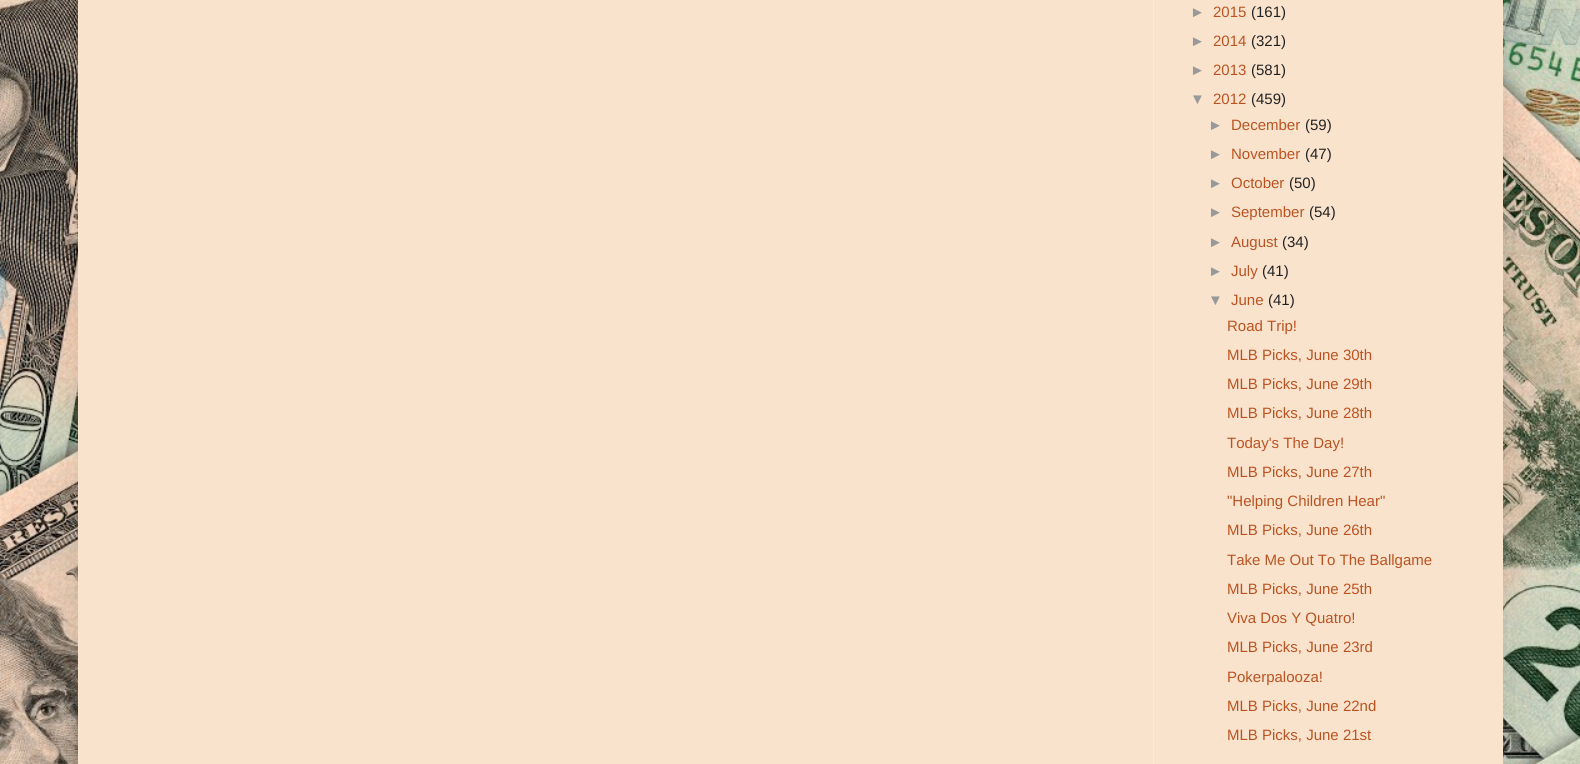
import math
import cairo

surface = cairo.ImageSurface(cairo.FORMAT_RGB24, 1580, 764)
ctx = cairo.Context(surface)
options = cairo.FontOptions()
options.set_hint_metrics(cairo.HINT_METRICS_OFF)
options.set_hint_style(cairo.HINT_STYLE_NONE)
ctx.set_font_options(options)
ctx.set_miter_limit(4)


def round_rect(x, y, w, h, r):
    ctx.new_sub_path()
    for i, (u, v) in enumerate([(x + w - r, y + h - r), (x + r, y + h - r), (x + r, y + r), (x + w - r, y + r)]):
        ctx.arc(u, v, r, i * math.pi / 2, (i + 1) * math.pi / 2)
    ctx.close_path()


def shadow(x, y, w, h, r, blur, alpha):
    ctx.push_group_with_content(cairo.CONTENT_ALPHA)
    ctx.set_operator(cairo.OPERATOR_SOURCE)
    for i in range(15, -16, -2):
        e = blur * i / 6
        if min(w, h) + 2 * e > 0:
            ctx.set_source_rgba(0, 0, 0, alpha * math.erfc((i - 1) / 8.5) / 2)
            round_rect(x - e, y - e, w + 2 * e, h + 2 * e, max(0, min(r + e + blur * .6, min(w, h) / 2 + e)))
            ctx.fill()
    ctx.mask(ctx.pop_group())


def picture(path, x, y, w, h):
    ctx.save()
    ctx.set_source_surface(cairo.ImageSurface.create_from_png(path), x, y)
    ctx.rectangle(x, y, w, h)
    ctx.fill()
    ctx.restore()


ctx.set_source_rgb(1, 1, 1)
ctx.paint()
picture("img1.png", 0, 0, 1580, 764)
ctx.set_source_rgb(0, 0, 0)
shadow(78, -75, 1425, 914, 0, 25, 0.15)
ctx.set_source_rgb(0.973, 0.89, 0.804)
ctx.rectangle(78, 0, 1425, 764)
ctx.fill()
ctx.set_source_rgb(0.933, 0.933, 0.933)
ctx.rectangle(1153, 0, 1, 764)
ctx.fill()
ctx.select_font_face("Liberation Sans")
ctx.set_font_size(15)
ctx.set_source_rgb(0.6, 0.6, 0.6)
ctx.move_to(1190, 17)
ctx.show_text("►")
ctx.set_source_rgb(0.733, 0.325, 0.129)
ctx.move_to(1213, 17)
ctx.show_text("2015")
ctx.set_source_rgb(0.133, 0.133, 0.133)
ctx.move_to(1251, 17)
ctx.show_text("(161)")
ctx.set_source_rgb(0.6, 0.6, 0.6)
ctx.move_to(1190, 46)
ctx.show_text("►")
ctx.set_source_rgb(0.733, 0.325, 0.129)
ctx.move_to(1213, 46)
ctx.show_text("2014")
ctx.set_source_rgb(0.133, 0.133, 0.133)
ctx.move_to(1251, 46)
ctx.show_text("(321)")
ctx.set_source_rgb(0.6, 0.6, 0.6)
ctx.move_to(1190, 75)
ctx.show_text("►")
ctx.set_source_rgb(0.733, 0.325, 0.129)
ctx.move_to(1213, 75)
ctx.show_text("2013")
ctx.set_source_rgb(0.133, 0.133, 0.133)
ctx.move_to(1251, 75)
ctx.show_text("(581)")
ctx.set_source_rgb(0.6, 0.6, 0.6)
ctx.move_to(1190, 104)
ctx.show_text("▼")
ctx.set_source_rgb(0.733, 0.325, 0.129)
ctx.move_to(1213, 104)
ctx.show_text("2012")
ctx.set_source_rgb(0.133, 0.133, 0.133)
ctx.move_to(1251, 104)
ctx.show_text("(459)")
ctx.set_source_rgb(0.6, 0.6, 0.6)
ctx.move_to(1208, 130)
ctx.show_text("►")
ctx.set_source_rgb(0.733, 0.325, 0.129)
ctx.move_to(1231, 130)
ctx.show_text("December")
ctx.set_source_rgb(0.133, 0.133, 0.133)
ctx.move_to(1305, 130)
ctx.show_text("(59)")
ctx.set_source_rgb(0.6, 0.6, 0.6)
ctx.move_to(1208, 159)
ctx.show_text("►")
ctx.set_source_rgb(0.733, 0.325, 0.129)
ctx.move_to(1231, 159)
ctx.show_text("November")
ctx.set_source_rgb(0.133, 0.133, 0.133)
ctx.move_to(1305, 159)
ctx.show_text("(47)")
ctx.set_source_rgb(0.6, 0.6, 0.6)
ctx.move_to(1208, 188)
ctx.show_text("►")
ctx.set_source_rgb(0.733, 0.325, 0.129)
ctx.move_to(1231, 188)
ctx.show_text("October")
ctx.set_source_rgb(0.133, 0.133, 0.133)
ctx.move_to(1289, 188)
ctx.show_text("(50)")
ctx.set_source_rgb(0.6, 0.6, 0.6)
ctx.move_to(1208, 217)
ctx.show_text("►")
ctx.set_source_rgb(0.733, 0.325, 0.129)
ctx.move_to(1231, 217)
ctx.show_text("September")
ctx.set_source_rgb(0.133, 0.133, 0.133)
ctx.move_to(1309, 217)
ctx.show_text("(54)")
ctx.set_source_rgb(0.6, 0.6, 0.6)
ctx.move_to(1208, 247)
ctx.show_text("►")
ctx.set_source_rgb(0.733, 0.325, 0.129)
ctx.move_to(1231, 247)
ctx.show_text("August")
ctx.set_source_rgb(0.133, 0.133, 0.133)
ctx.move_to(1282, 247)
ctx.show_text("(34)")
ctx.set_source_rgb(0.6, 0.6, 0.6)
ctx.move_to(1208, 276)
ctx.show_text("►")
ctx.set_source_rgb(0.733, 0.325, 0.129)
ctx.move_to(1231, 276)
ctx.show_text("July")
ctx.set_source_rgb(0.133, 0.133, 0.133)
ctx.move_to(1262, 276)
ctx.show_text("(41)")
ctx.set_source_rgb(0.6, 0.6, 0.6)
ctx.move_to(1208, 305)
ctx.show_text("▼")
ctx.set_source_rgb(0.733, 0.325, 0.129)
ctx.move_to(1231, 305)
ctx.show_text("June")
ctx.set_source_rgb(0.133, 0.133, 0.133)
ctx.move_to(1268, 305)
ctx.show_text("(41)")
ctx.set_source_rgb(0.733, 0.325, 0.129)
ctx.move_to(1227, 331)
ctx.show_text("Road Trip!")
ctx.move_to(1227, 360)
ctx.show_text("MLB Picks, June 30th")
ctx.move_to(1227, 389)
ctx.show_text("MLB Picks, June 29th")
ctx.move_to(1227, 418)
ctx.show_text("MLB Picks, June 28th")
ctx.move_to(1227, 448)
ctx.show_text("Today's The Day!")
ctx.move_to(1227, 477)
ctx.show_text("MLB Picks, June 27th")
ctx.move_to(1227, 506)
ctx.show_text("\"Helping Children Hear\"")
ctx.move_to(1227, 535)
ctx.show_text("MLB Picks, June 26th")
ctx.move_to(1227, 565)
ctx.show_text("Take Me Out To The Ballgame")
ctx.move_to(1227, 594)
ctx.show_text("MLB Picks, June 25th")
ctx.move_to(1227, 623)
ctx.show_text("Viva Dos Y Quatro!")
ctx.move_to(1227, 652)
ctx.show_text("MLB Picks, June 23rd")
ctx.move_to(1227, 682)
ctx.show_text("Pokerpalooza!")
ctx.move_to(1227, 711)
ctx.show_text("MLB Picks, June 22nd")
ctx.move_to(1227, 740)
ctx.show_text("MLB Picks, June 21st")
surface.write_to_png("page.png")
